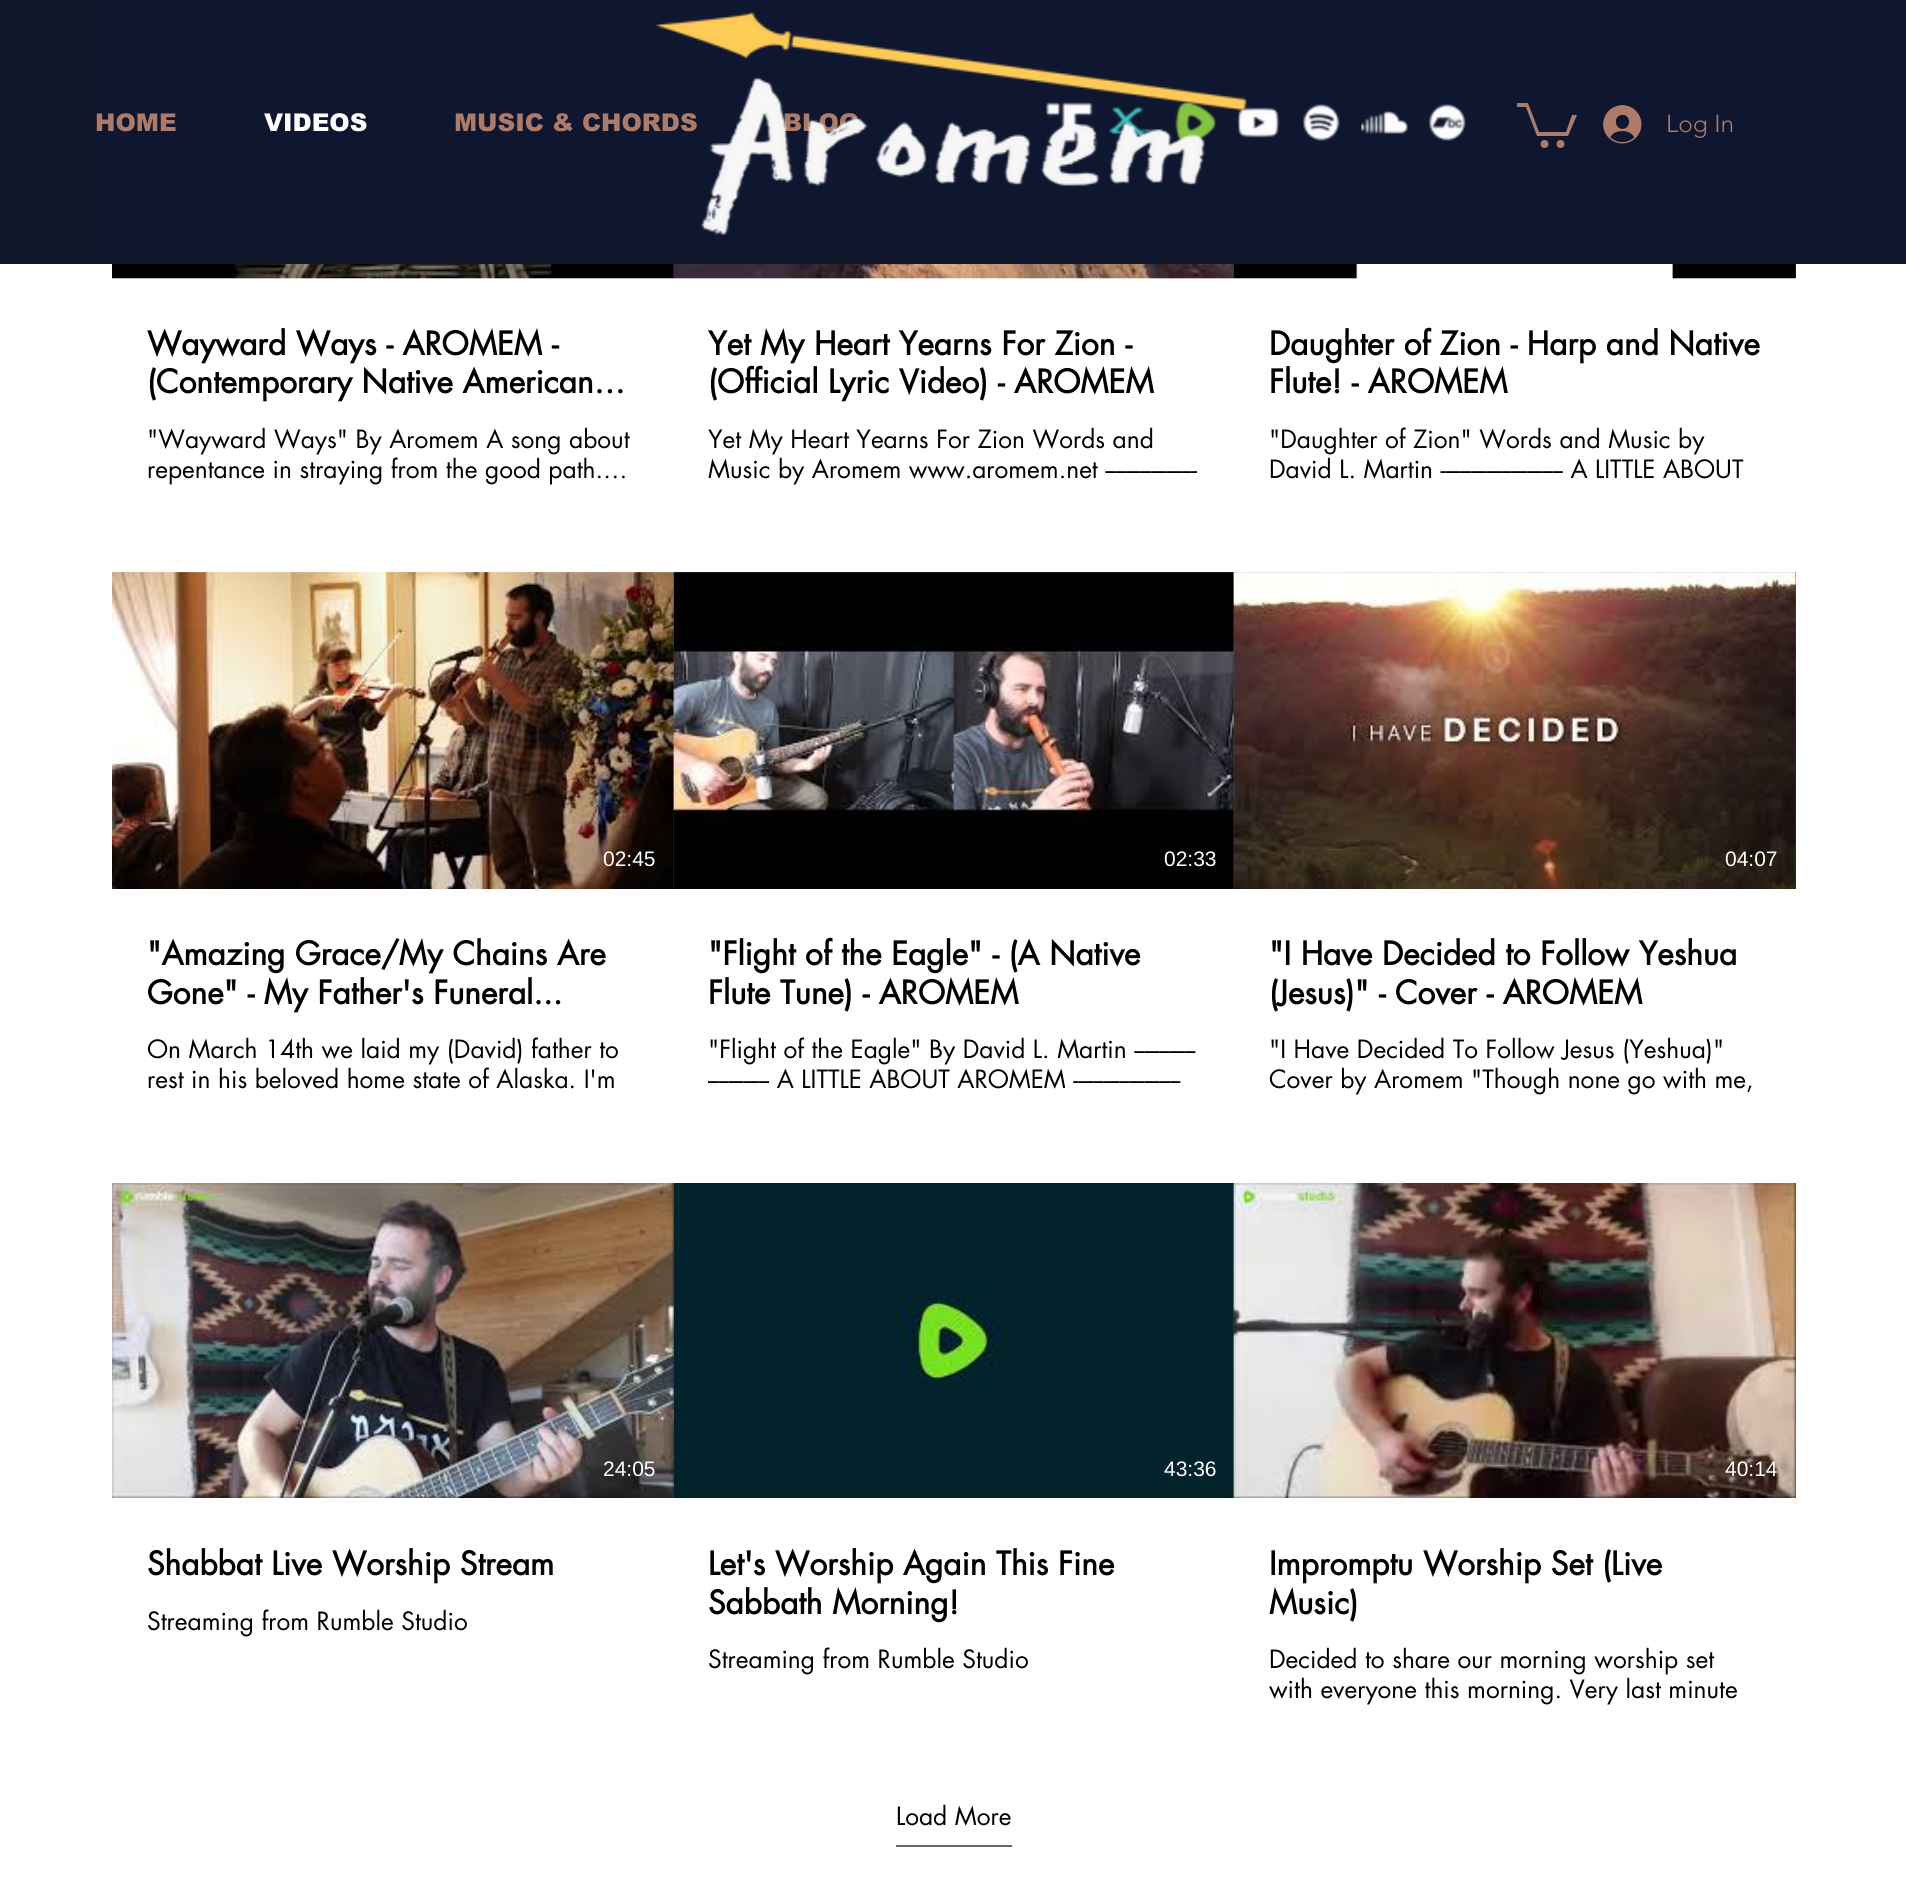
import math
import cairo

surface = cairo.ImageSurface(cairo.FORMAT_RGB24, 1906, 1877)
ctx = cairo.Context(surface)
options = cairo.FontOptions()
options.set_hint_metrics(cairo.HINT_METRICS_OFF)
options.set_hint_style(cairo.HINT_STYLE_NONE)
ctx.set_font_options(options)
ctx.set_miter_limit(4)


def picture(path, x, y, w, h):
    ctx.save()
    ctx.set_source_surface(cairo.ImageSurface.create_from_png(path), x, y)
    ctx.rectangle(x, y, w, h)
    ctx.fill()
    ctx.restore()


ctx.set_source_rgb(1, 1, 1)
ctx.paint()
ctx.set_source_rgb(0.071, 0.094, 0.169)
ctx.rectangle(0, 0, 1906, 264)
ctx.fill()
ctx.set_source_rgb(0.059, 0.086, 0.184)
ctx.rectangle(96, 0, 1715, 256)
ctx.fill()
ctx.select_font_face("arial Black")
ctx.set_font_size(24.5)
ctx.set_source_rgb(0.678, 0.482, 0.404)
ctx.move_to(454, 131)
ctx.show_text("MUSIC & CHORDS")
ctx.move_to(783, 131)
ctx.show_text("BLOG")
picture("img2.png", 1046, 102, 47, 41)
picture("img3.png", 1109, 106, 47, 33)
picture("img4.png", 1175, 101, 42, 44)
picture("img5.png", 1237, 107, 43, 31)
picture("img1.png", 656, 12, 591, 223)
ctx.move_to(95, 131)
ctx.show_text("HOME")
ctx.set_source_rgb(1, 1, 1)
ctx.move_to(264, 131)
ctx.show_text("VIDEOS")
picture("img6.png", 1303, 104, 37, 37)
picture("img7.png", 1361, 111, 47, 23)
picture("img8.png", 1429, 104, 37, 37)
ctx.set_source_rgb(0.678, 0.482, 0.404)
ctx.new_path()
ctx.move_to(1577, 115)
ctx.line_to(1568, 136)
ctx.line_to(1537, 136)
ctx.line_to(1526, 107)
ctx.line_to(1517, 107)
ctx.line_to(1517, 103)
ctx.line_to(1528, 103)
ctx.line_to(1539, 132)
ctx.line_to(1566, 132)
ctx.line_to(1572, 115)
ctx.fill()
ctx.arc(1560.5, 144, 4, 0, 2 * math.pi)
ctx.fill()
ctx.arc(1544.5, 144, 4, 0, 2 * math.pi)
ctx.fill()
picture("img9.png", 1603, 105, 39, 39)
ctx.select_font_face("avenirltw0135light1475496 Light")
ctx.move_to(1666, 132)
ctx.show_text("Log In")
ctx.set_source_rgb(0.059, 0.086, 0.184)
ctx.rectangle(1811, 0, 95, 250)
ctx.fill()
picture("img10.png", 112, 264, 562, 15)
picture("img11.png", 112, 264, 562, 15)
ctx.select_font_face("futura", cairo.FONT_SLANT_NORMAL, cairo.FONT_WEIGHT_BOLD)
ctx.set_font_size(31.5)
ctx.set_source_rgb(0, 0, 0)
ctx.move_to(147, 355)
ctx.show_text("Wayward Ways - AROMEM -")
ctx.move_to(147, 393)
ctx.show_text("(Contemporary Native American…")
ctx.select_font_face("futura")
ctx.set_font_size(24.5)
ctx.move_to(147, 448)
ctx.show_text("\"Wayward Ways\" By Aromem A song about")
ctx.move_to(147, 478)
ctx.show_text("repentance in straying from the good path.…")
picture("img12.png", 673, 264, 561, 15)
picture("img13.png", 673, 264, 561, 15)
ctx.select_font_face("futura", cairo.FONT_SLANT_NORMAL, cairo.FONT_WEIGHT_BOLD)
ctx.set_font_size(31.5)
ctx.move_to(708, 355)
ctx.show_text("Yet My Heart Yearns For Zion -")
ctx.move_to(708, 393)
ctx.show_text("(Official Lyric Video) - AROMEM")
ctx.select_font_face("futura")
ctx.set_font_size(24.5)
ctx.move_to(708, 448)
ctx.show_text("Yet My Heart Yearns For Zion Words and")
ctx.move_to(708, 478)
ctx.show_text("Music by Aromem www.aromem.net ------------------")
ctx.set_source_rgb(0.208, 0.275, 0.361)
ctx.rectangle(1795, 264, 1, 14)
ctx.fill()
picture("img14.png", 1233, 264, 563, 15)
picture("img15.png", 1233, 264, 563, 15)
ctx.select_font_face("futura", cairo.FONT_SLANT_NORMAL, cairo.FONT_WEIGHT_BOLD)
ctx.set_font_size(31.5)
ctx.set_source_rgb(0, 0, 0)
ctx.move_to(1269, 355)
ctx.show_text("Daughter of Zion - Harp and Native")
ctx.move_to(1269, 393)
ctx.show_text("Flute! - AROMEM")
ctx.select_font_face("futura")
ctx.set_font_size(24.5)
ctx.move_to(1269, 448)
ctx.show_text("\"Daughter of Zion\" Words and Music by")
ctx.move_to(1269, 478)
ctx.show_text("David L. Martin ------------------------ A LITTLE ABOUT")
picture("img16.png", 112, 572, 562, 317)
picture("img17.png", 112, 572, 562, 317)
ctx.select_font_face("Liberation Sans")
ctx.set_font_size(21)
ctx.set_source_rgb(1, 1, 1)
ctx.move_to(603, 866)
ctx.show_text("02:45")
ctx.select_font_face("futura", cairo.FONT_SLANT_NORMAL, cairo.FONT_WEIGHT_BOLD)
ctx.set_font_size(31.5)
ctx.set_source_rgb(0, 0, 0)
ctx.move_to(147, 965)
ctx.show_text("\"Amazing Grace/My Chains Are")
ctx.move_to(147, 1004)
ctx.show_text("Gone\" - My Father's Funeral...")
ctx.select_font_face("futura")
ctx.set_font_size(24.5)
ctx.move_to(147, 1058)
ctx.show_text("On March 14th we laid my (David) father to")
ctx.move_to(147, 1088)
ctx.show_text("rest in his beloved home state of Alaska. I'm")
picture("img18.png", 673, 572, 561, 317)
picture("img19.png", 673, 572, 561, 317)
ctx.select_font_face("Liberation Sans")
ctx.set_font_size(21)
ctx.set_source_rgb(1, 1, 1)
ctx.move_to(1164, 866)
ctx.show_text("02:33")
ctx.select_font_face("futura", cairo.FONT_SLANT_NORMAL, cairo.FONT_WEIGHT_BOLD)
ctx.set_font_size(31.5)
ctx.set_source_rgb(0, 0, 0)
ctx.move_to(708, 965)
ctx.show_text("\"Flight of the Eagle\" - (A Native")
ctx.move_to(708, 1004)
ctx.show_text("Flute Tune) - AROMEM")
ctx.select_font_face("futura")
ctx.set_font_size(24.5)
ctx.move_to(708, 1058)
ctx.show_text("\"Flight of the Eagle\" By David L. Martin ------------")
ctx.move_to(708, 1088)
ctx.show_text("------------ A LITTLE ABOUT AROMEM ---------------------")
ctx.set_source_rgb(0.208, 0.275, 0.361)
ctx.rectangle(1234, 572, 562, 317)
ctx.fill()
picture("img20.png", 1233, 572, 563, 317)
picture("img21.png", 1233, 572, 563, 317)
ctx.select_font_face("Liberation Sans")
ctx.set_font_size(21)
ctx.set_source_rgb(1, 1, 1)
ctx.move_to(1725, 866)
ctx.show_text("04:07")
ctx.select_font_face("futura", cairo.FONT_SLANT_NORMAL, cairo.FONT_WEIGHT_BOLD)
ctx.set_font_size(31.5)
ctx.set_source_rgb(0, 0, 0)
ctx.move_to(1269, 965)
ctx.show_text("\"I Have Decided to Follow Yeshua")
ctx.move_to(1269, 1004)
ctx.show_text("(Jesus)\" - Cover - AROMEM")
ctx.select_font_face("futura")
ctx.set_font_size(24.5)
ctx.move_to(1269, 1058)
ctx.show_text("\"I Have Decided To Follow Jesus (Yeshua)\"")
ctx.move_to(1269, 1088)
ctx.show_text("Cover by Aromem \"Though none go with me,")
picture("img22.png", 673, 1183, 1, 315)
picture("img23.png", 112, 1183, 562, 315)
ctx.select_font_face("Liberation Sans")
ctx.set_font_size(21)
ctx.set_source_rgb(1, 1, 1)
ctx.move_to(603, 1476)
ctx.show_text("24:05")
ctx.select_font_face("futura", cairo.FONT_SLANT_NORMAL, cairo.FONT_WEIGHT_BOLD)
ctx.set_font_size(31.5)
ctx.set_source_rgb(0, 0, 0)
ctx.move_to(147, 1575)
ctx.show_text("Shabbat Live Worship Stream")
ctx.select_font_face("futura")
ctx.set_font_size(24.5)
ctx.move_to(147, 1630)
ctx.show_text("Streaming from Rumble Studio")
picture("img24.png", 673, 1183, 561, 315)
picture("img25.png", 673, 1183, 561, 315)
ctx.select_font_face("Liberation Sans")
ctx.set_font_size(21)
ctx.set_source_rgb(1, 1, 1)
ctx.move_to(1164, 1476)
ctx.show_text("43:36")
ctx.select_font_face("futura", cairo.FONT_SLANT_NORMAL, cairo.FONT_WEIGHT_BOLD)
ctx.set_font_size(31.5)
ctx.set_source_rgb(0, 0, 0)
ctx.move_to(708, 1575)
ctx.show_text("Let's Worship Again This Fine")
ctx.move_to(708, 1614)
ctx.show_text("Sabbath Morning!")
ctx.select_font_face("futura")
ctx.set_font_size(24.5)
ctx.move_to(708, 1668)
ctx.show_text("Streaming from Rumble Studio")
ctx.set_source_rgb(0.208, 0.275, 0.361)
ctx.rectangle(1795, 1183, 1, 315)
ctx.fill()
picture("img26.png", 1233, 1183, 563, 315)
picture("img27.png", 1233, 1183, 563, 315)
ctx.select_font_face("Liberation Sans")
ctx.set_font_size(21)
ctx.set_source_rgb(1, 1, 1)
ctx.move_to(1725, 1476)
ctx.show_text("40:14")
ctx.select_font_face("futura", cairo.FONT_SLANT_NORMAL, cairo.FONT_WEIGHT_BOLD)
ctx.set_font_size(31.5)
ctx.set_source_rgb(0, 0, 0)
ctx.move_to(1269, 1575)
ctx.show_text("Impromptu Worship Set (Live")
ctx.move_to(1269, 1614)
ctx.show_text("Music)")
ctx.select_font_face("futura")
ctx.set_font_size(24.5)
ctx.move_to(1269, 1668)
ctx.show_text("Decided to share our morning worship set")
ctx.move_to(1269, 1698)
ctx.show_text("with everyone this morning. Very last minute")
ctx.set_source_rgb(0.4, 0.4, 0.4)
ctx.rectangle(896, 1845, 116, 2)
ctx.fill()
ctx.set_source_rgb(0, 0, 0)
ctx.move_to(896, 1825)
ctx.show_text("Load More")
surface.write_to_png("page.png")
